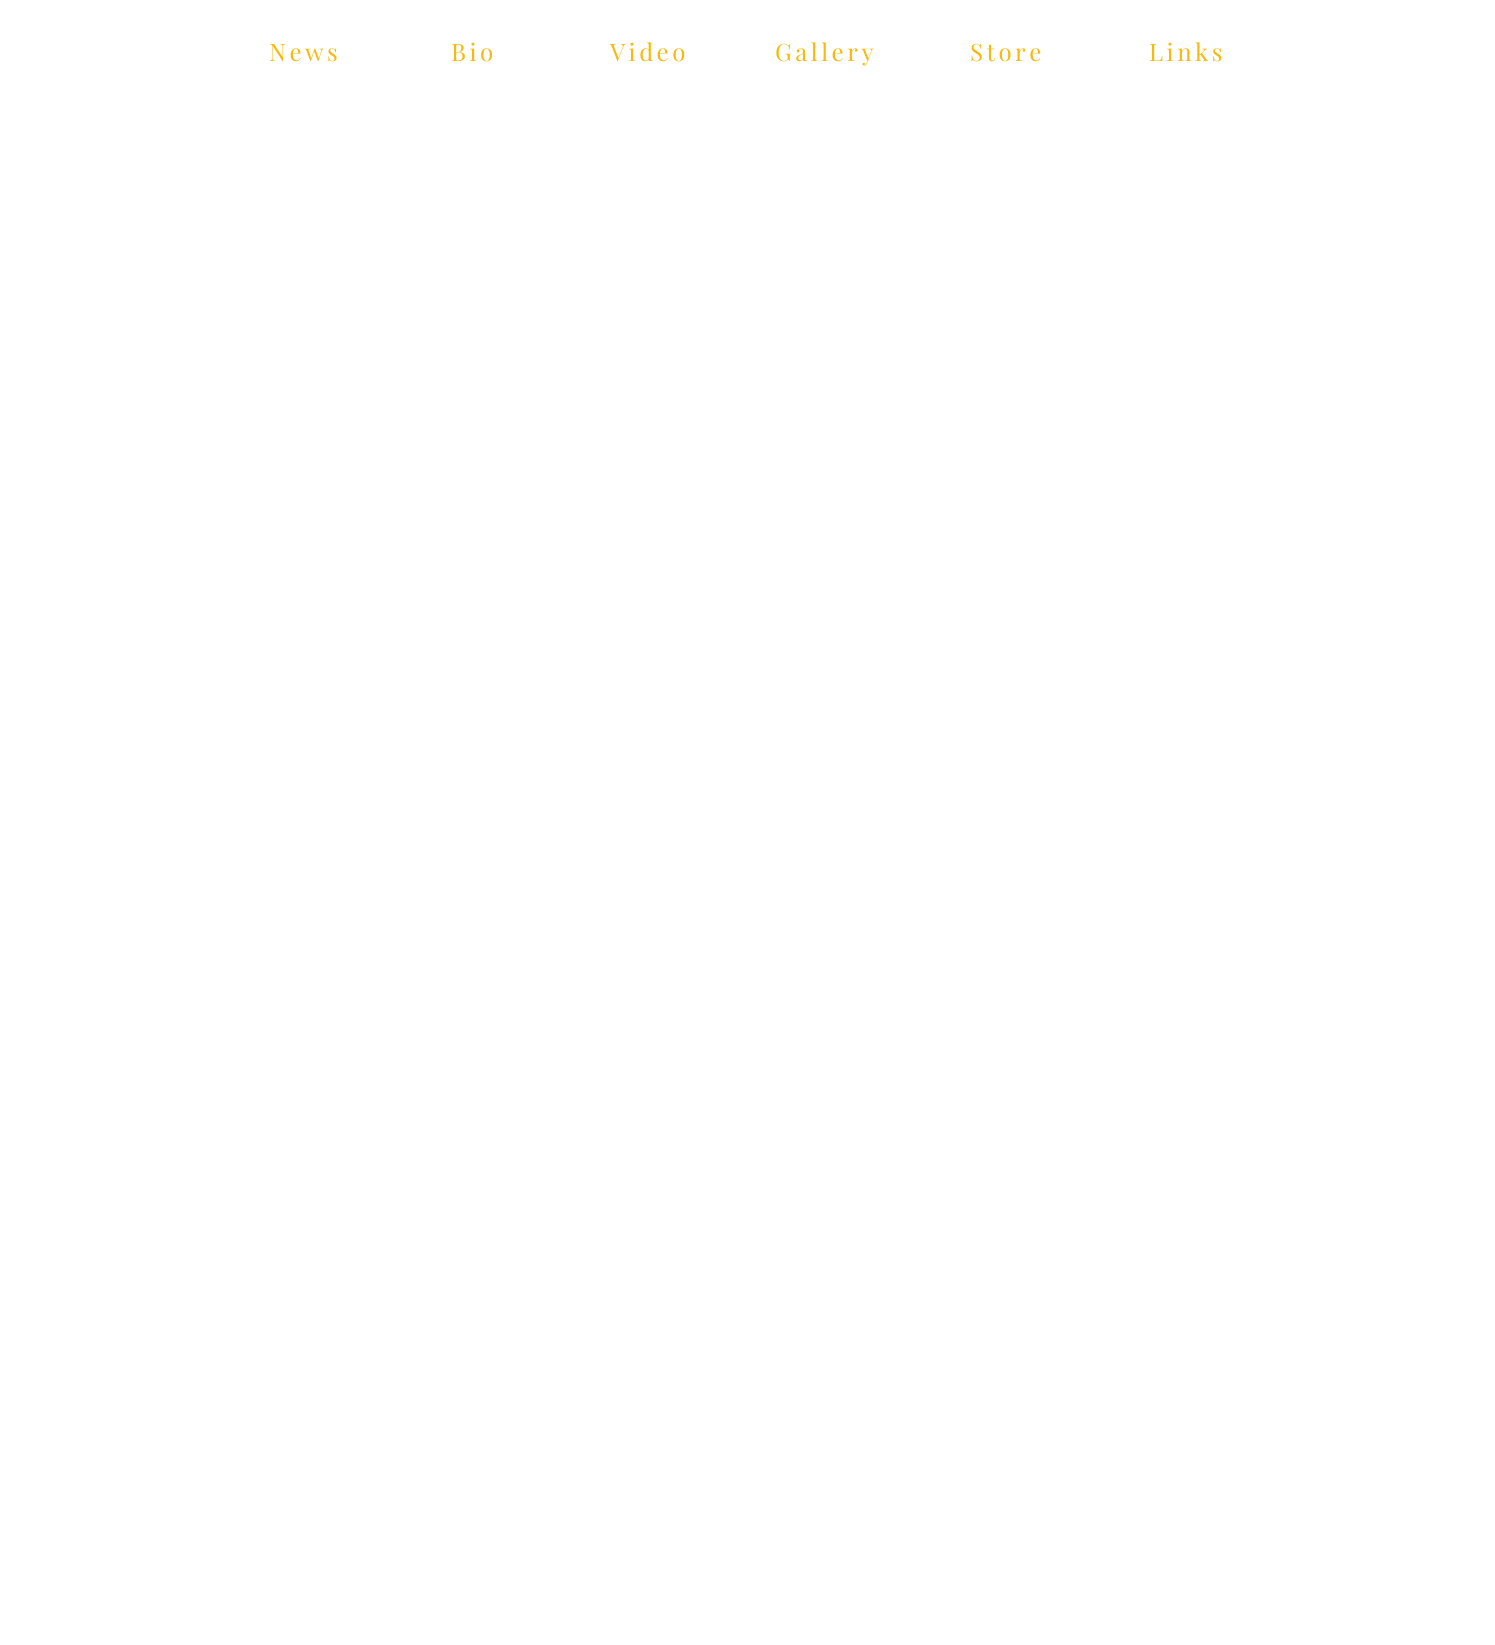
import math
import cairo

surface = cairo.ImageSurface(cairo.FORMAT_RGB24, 1495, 1645)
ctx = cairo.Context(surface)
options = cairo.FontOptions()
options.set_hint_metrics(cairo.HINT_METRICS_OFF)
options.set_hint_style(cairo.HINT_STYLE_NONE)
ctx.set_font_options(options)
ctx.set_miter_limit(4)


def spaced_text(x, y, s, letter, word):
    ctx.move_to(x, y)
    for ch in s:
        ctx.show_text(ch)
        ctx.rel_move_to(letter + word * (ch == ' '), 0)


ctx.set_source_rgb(1, 1, 1)
ctx.paint()
ctx.select_font_face("Playfair Display")
ctx.set_font_size(24)
ctx.set_source_rgb(0.965, 0.725, 0.047)
spaced_text(269, 61, "News", 3.5, 0)
spaced_text(451, 61, "Bio", 3.5, 0)
spaced_text(610, 61, "Video", 3.5, 0)
spaced_text(775, 61, "Gallery", 3.5, 0)
spaced_text(970, 61, "Store", 3.5, 0)
spaced_text(1149, 61, "Links", 3.5, 0)
surface.write_to_png("page.png")
